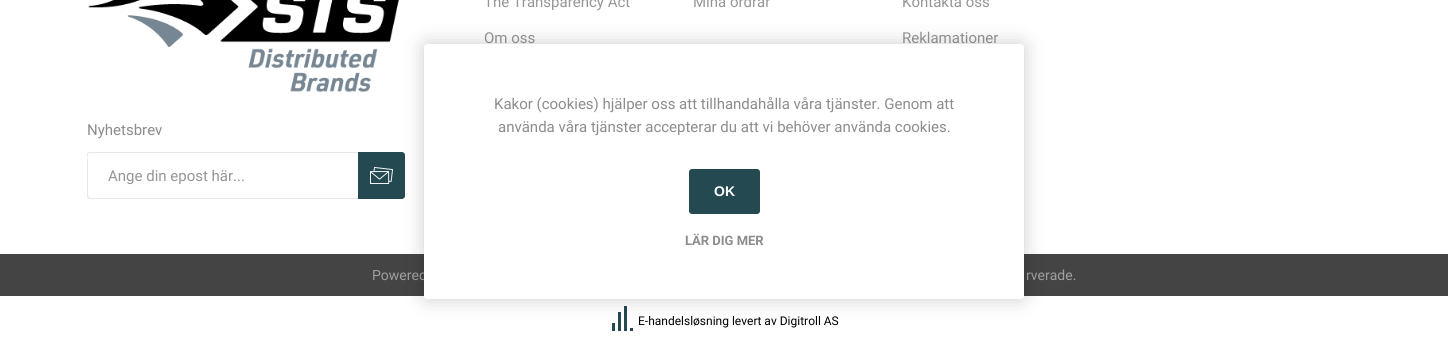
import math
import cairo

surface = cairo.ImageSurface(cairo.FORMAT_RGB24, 1448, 341)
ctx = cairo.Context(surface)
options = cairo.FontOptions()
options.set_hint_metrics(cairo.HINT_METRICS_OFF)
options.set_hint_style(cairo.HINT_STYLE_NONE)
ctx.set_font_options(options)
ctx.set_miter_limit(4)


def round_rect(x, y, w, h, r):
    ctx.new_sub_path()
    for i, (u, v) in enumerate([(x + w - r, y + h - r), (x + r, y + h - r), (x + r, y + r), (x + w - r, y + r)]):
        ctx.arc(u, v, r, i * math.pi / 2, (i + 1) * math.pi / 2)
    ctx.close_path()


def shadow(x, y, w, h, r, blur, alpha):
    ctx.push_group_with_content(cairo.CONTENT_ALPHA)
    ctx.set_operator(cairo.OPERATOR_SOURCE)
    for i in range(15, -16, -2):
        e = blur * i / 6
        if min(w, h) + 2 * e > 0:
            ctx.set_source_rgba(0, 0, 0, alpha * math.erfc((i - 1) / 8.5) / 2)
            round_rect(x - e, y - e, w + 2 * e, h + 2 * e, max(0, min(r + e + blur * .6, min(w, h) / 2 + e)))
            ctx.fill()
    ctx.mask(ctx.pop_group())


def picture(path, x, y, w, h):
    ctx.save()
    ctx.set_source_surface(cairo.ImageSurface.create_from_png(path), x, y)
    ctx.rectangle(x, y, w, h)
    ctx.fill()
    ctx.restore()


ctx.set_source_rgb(1, 1, 1)
ctx.paint()
ctx.select_font_face("Roboto")
ctx.set_font_size(15)
ctx.set_source_rgb(0.584, 0.584, 0.584)
ctx.move_to(484, 7)
ctx.show_text("The Transparency Act")
ctx.move_to(484, 43)
ctx.show_text("Om oss")
ctx.move_to(693, 7)
ctx.show_text("Mina ordrar")
ctx.move_to(902, 7)
ctx.show_text("Kontakta oss")
ctx.move_to(902, 43)
ctx.show_text("Reklamationer")
picture("img1.png", 88, 0, 311, 93)
ctx.set_source_rgb(0.549, 0.549, 0.549)
ctx.move_to(87, 135)
ctx.show_text("Nyhetsbrev")
ctx.set_source_rgb(0.906, 0.906, 0.906)
ctx.set_fill_rule(cairo.FILL_RULE_EVEN_ODD)
ctx.new_path()
ctx.move_to(90, 152)
ctx.line_to(358, 152)
ctx.line_to(358, 199)
ctx.line_to(90, 199)
ctx.curve_to(88, 199, 87, 198, 87, 196)
ctx.line_to(87, 155)
ctx.curve_to(87, 153, 88, 152, 90, 152)
ctx.close_path()
ctx.move_to(90, 153)
ctx.line_to(358, 153)
ctx.line_to(358, 198)
ctx.line_to(90, 198)
ctx.line_to(88, 196)
ctx.line_to(88, 162)
ctx.curve_to(88, 162, 86, 153, 90, 153)
ctx.close_path()
ctx.fill()
ctx.set_source_rgb(0.584, 0.584, 0.584)
ctx.move_to(108, 181)
ctx.show_text("Ange din epost här...")
ctx.set_source_rgb(0.141, 0.286, 0.318)
ctx.new_path()
ctx.move_to(358, 152)
ctx.line_to(402, 152)
ctx.curve_to(403.5, 152, 405, 153.5, 405, 155)
ctx.line_to(405, 196)
ctx.curve_to(405, 197.5, 403.5, 199, 402, 199)
ctx.line_to(358, 199)
ctx.close_path()
ctx.fill()
picture("img2.png", 370, 167, 23, 17)
ctx.set_source_rgb(0.267, 0.267, 0.267)
ctx.rectangle(0, 254, 1448, 42)
ctx.fill()
ctx.set_font_size(14)
ctx.set_source_rgb(0.627, 0.627, 0.627)
ctx.move_to(372, 280)
ctx.show_text("Powered")
ctx.move_to(1026, 280)
ctx.show_text("rverade.")
ctx.set_source_rgb(0.141, 0.286, 0.318)
ctx.rectangle(612, 323, 3, 8)
ctx.fill()
ctx.rectangle(618, 312, 3, 19)
ctx.fill()
ctx.rectangle(624, 306, 3, 25)
ctx.fill()
ctx.rectangle(630, 328, 3, 3)
ctx.fill()
ctx.set_font_size(12)
ctx.set_source_rgb(0, 0, 0)
ctx.move_to(638, 325)
ctx.show_text("E-handelsløsning levert av Digitroll AS")
ctx.set_source_rgb(0, 0, 0)
shadow(424, 44, 600, 255, 3, 10, 0.2)
ctx.set_source_rgb(1, 1, 1)
round_rect(424, 44, 600, 255, 3)
ctx.fill()
ctx.set_font_size(15)
ctx.set_source_rgb(0.549, 0.549, 0.549)
ctx.move_to(494, 109)
ctx.show_text("Kakor (cookies) hjälper oss att tillhandahålla våra tjänster. Genom att")
ctx.move_to(498, 132)
ctx.show_text("använda våra tjänster accepterar du att vi behöver använda cookies.")
ctx.set_source_rgb(0.141, 0.286, 0.318)
round_rect(689, 169, 71, 45, 3)
ctx.fill()
ctx.select_font_face("Liberation Sans", cairo.FONT_SLANT_NORMAL, cairo.FONT_WEIGHT_BOLD)
ctx.set_font_size(14)
ctx.set_source_rgb(1, 1, 1)
ctx.move_to(714, 196)
ctx.show_text("OK")
ctx.select_font_face("Roboto", cairo.FONT_SLANT_NORMAL, cairo.FONT_WEIGHT_BOLD)
ctx.set_font_size(13)
ctx.set_source_rgb(0.549, 0.549, 0.549)
ctx.move_to(685, 245)
ctx.show_text("LÄR DIG MER")
surface.write_to_png("page.png")
